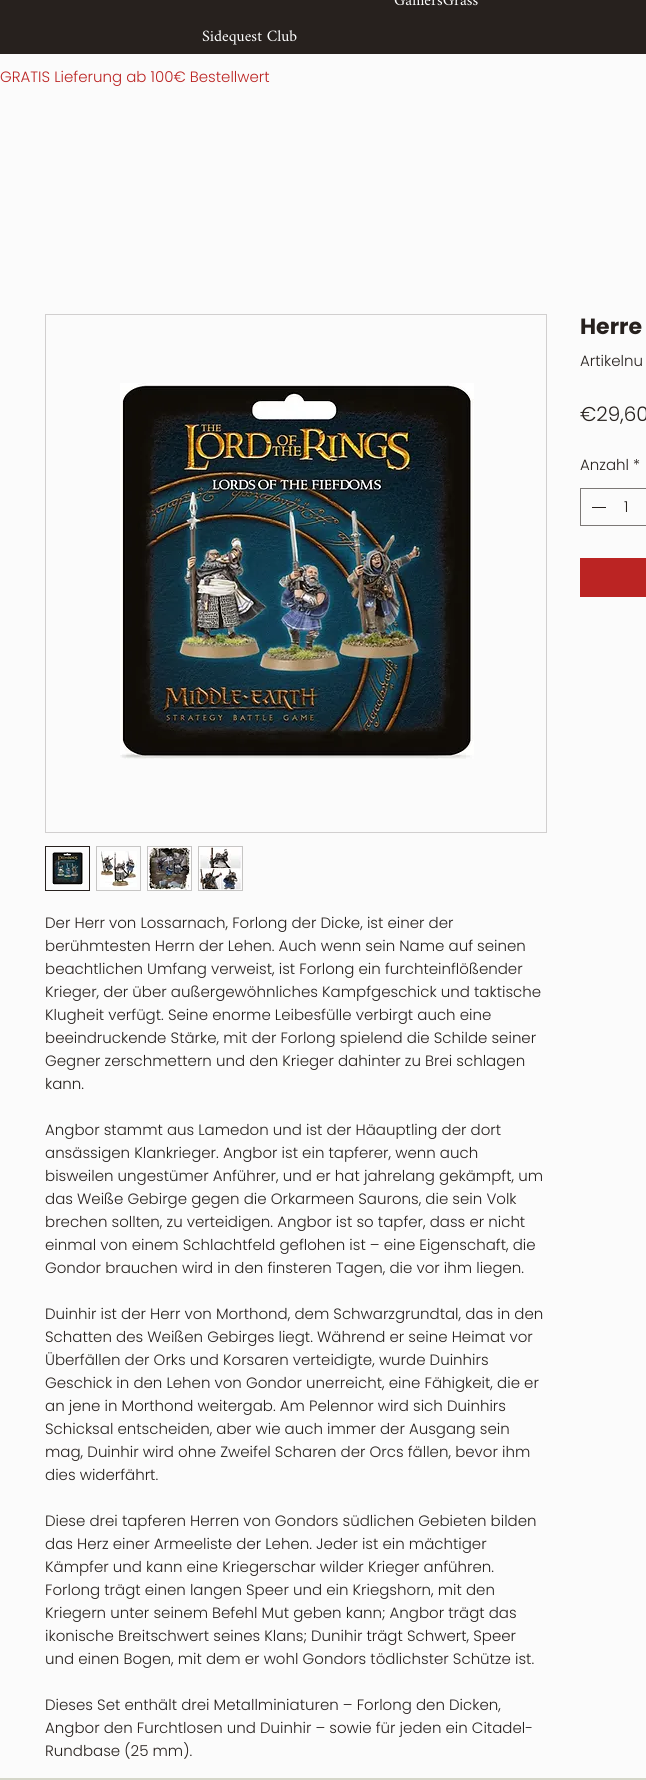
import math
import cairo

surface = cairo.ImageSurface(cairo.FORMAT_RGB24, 646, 1780)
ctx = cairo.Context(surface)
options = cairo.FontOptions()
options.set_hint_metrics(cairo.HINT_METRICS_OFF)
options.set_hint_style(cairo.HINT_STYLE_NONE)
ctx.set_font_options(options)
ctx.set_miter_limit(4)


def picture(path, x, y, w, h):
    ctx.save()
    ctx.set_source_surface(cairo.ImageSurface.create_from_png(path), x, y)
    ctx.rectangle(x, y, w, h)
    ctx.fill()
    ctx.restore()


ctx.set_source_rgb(0.835, 0.843, 0.788)
ctx.paint()
ctx.set_source_rgb(0.153, 0.129, 0.118)
ctx.rectangle(0, 0, 646, 54)
ctx.fill()
ctx.select_font_face("Amiri")
ctx.set_font_size(16)
ctx.set_source_rgb(1, 1, 1)
ctx.move_to(394, 5)
ctx.show_text("GamersGrass")
ctx.move_to(202, 41)
ctx.show_text("Sidequest Club")
ctx.set_source_rgb(0.984, 0.984, 0.984)
ctx.rectangle(0, 54, 646, 1724)
ctx.fill()
ctx.select_font_face("Poppins Light")
ctx.set_font_size(15)
ctx.set_source_rgb(0.733, 0.141, 0.137)
ctx.move_to(0, 82)
ctx.show_text("GRATIS Lieferung ab 100€ Bestellwert")
ctx.select_font_face("Poppins", cairo.FONT_SLANT_NORMAL, cairo.FONT_WEIGHT_BOLD)
ctx.set_font_size(22)
ctx.set_source_rgb(0.153, 0.129, 0.118)
ctx.move_to(580, 334)
ctx.show_text("Herre")
ctx.select_font_face("Poppins Light")
ctx.set_font_size(15)
ctx.move_to(580, 366)
ctx.show_text("Artikelnu")
ctx.set_font_size(20)
ctx.move_to(580, 421)
ctx.show_text("€29,60")
ctx.set_font_size(15)
ctx.move_to(580, 470)
ctx.show_text("Anzahl *")
ctx.rectangle(580.5, 488.5, 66, 37)
ctx.set_source_rgb(0.486, 0.471, 0.463)
ctx.set_line_width(1)
ctx.stroke()
ctx.set_source_rgb(0.153, 0.129, 0.118)
ctx.rectangle(592, 507, 14, 1)
ctx.fill()
ctx.move_to(624, 512)
ctx.show_text("1")
ctx.set_source_rgb(0.733, 0.141, 0.137)
ctx.rectangle(580, 558, 66, 39)
ctx.fill()
ctx.rectangle(45.5, 314.5, 501, 518)
ctx.set_source_rgb(0.82, 0.812, 0.812)
ctx.stroke()
picture("img1.png", 120, 383, 354, 376)
ctx.rectangle(45.5, 846.5, 44, 44)
ctx.set_source_rgb(0.153, 0.129, 0.118)
ctx.stroke()
picture("img2.png", 52, 852, 32, 34)
ctx.rectangle(96.5, 846.5, 44, 44)
ctx.set_source_rgb(0.776, 0.773, 0.769)
ctx.stroke()
picture("img3.png", 100, 851, 37, 36)
ctx.rectangle(147.5, 846.5, 44, 44)
ctx.stroke()
picture("img4.png", 148, 847, 43, 43)
ctx.rectangle(198.5, 846.5, 44, 44)
ctx.stroke()
picture("img5.png", 199, 847, 42, 43)
ctx.set_source_rgb(0.153, 0.129, 0.118)
ctx.move_to(45, 928)
ctx.show_text("Der Herr von Lossarnach, Forlong der Dicke, ist einer der")
ctx.move_to(45, 951)
ctx.show_text("berühmtesten Herrn der Lehen. Auch wenn sein Name auf seinen")
ctx.move_to(45, 974)
ctx.show_text("beachtlichen Umfang verweist, ist Forlong ein furchteinflößender")
ctx.move_to(45, 997)
ctx.show_text("Krieger, der über außergewöhnliches Kampfgeschick und taktische")
ctx.move_to(45, 1020)
ctx.show_text("Klugheit verfügt. Seine enorme Leibesfülle verbirgt auch eine")
ctx.move_to(45, 1043)
ctx.show_text("beeindruckende Stärke, mit der Forlong spielend die Schilde seiner")
ctx.move_to(45, 1066)
ctx.show_text("Gegner zerschmettern und den Krieger dahinter zu Brei schlagen")
ctx.move_to(45, 1089)
ctx.show_text("kann.")
ctx.move_to(45, 1135)
ctx.show_text("Angbor stammt aus Lamedon und ist der Häauptling der dort")
ctx.move_to(45, 1158)
ctx.show_text("ansässigen Klankrieger. Angbor ist ein tapferer, wenn auch")
ctx.move_to(45, 1181)
ctx.show_text("bisweilen ungestümer Anführer, und er hat jahrelang gekämpft, um")
ctx.move_to(45, 1204)
ctx.show_text("das Weiße Gebirge gegen die Orkarmeen Saurons, die sein Volk")
ctx.move_to(45, 1227)
ctx.show_text("brechen sollten, zu verteidigen. Angbor ist so tapfer, dass er nicht")
ctx.move_to(45, 1250)
ctx.show_text("einmal von einem Schlachtfeld geflohen ist – eine Eigenschaft, die")
ctx.move_to(45, 1273)
ctx.show_text("Gondor brauchen wird in den finsteren Tagen, die vor ihm liegen.")
ctx.move_to(45, 1319)
ctx.show_text("Duinhir ist der Herr von Morthond, dem Schwarzgrundtal, das in den")
ctx.move_to(45, 1342)
ctx.show_text("Schatten des Weißen Gebirges liegt. Während er seine Heimat vor")
ctx.move_to(45, 1365)
ctx.show_text("Überfällen der Orks und Korsaren verteidigte, wurde Duinhirs")
ctx.move_to(45, 1388)
ctx.show_text("Geschick in den Lehen von Gondor unerreicht, eine Fähigkeit, die er")
ctx.move_to(45, 1411)
ctx.show_text("an jene in Morthond weitergab. Am Pelennor wird sich Duinhirs")
ctx.move_to(45, 1434)
ctx.show_text("Schicksal entscheiden, aber wie auch immer der Ausgang sein")
ctx.move_to(45, 1457)
ctx.show_text("mag, Duinhir wird ohne Zweifel Scharen der Orcs fällen, bevor ihm")
ctx.move_to(45, 1480)
ctx.show_text("dies widerfährt.")
ctx.move_to(45, 1526)
ctx.show_text("Diese drei tapferen Herren von Gondors südlichen Gebieten bilden")
ctx.move_to(45, 1549)
ctx.show_text("das Herz einer Armeeliste der Lehen. Jeder ist ein mächtiger")
ctx.move_to(45, 1572)
ctx.show_text("Kämpfer und kann eine Kriegerschar wilder Krieger anführen.")
ctx.move_to(45, 1595)
ctx.show_text("Forlong trägt einen langen Speer und ein Kriegshorn, mit den")
ctx.move_to(45, 1618)
ctx.show_text("Kriegern unter seinem Befehl Mut geben kann; Angbor trägt das")
ctx.move_to(45, 1641)
ctx.show_text("ikonische Breitschwert seines Klans; Dunihir trägt Schwert, Speer")
ctx.move_to(45, 1664)
ctx.show_text("und einen Bogen, mit dem er wohl Gondors tödlichster Schütze ist.")
ctx.move_to(45, 1710)
ctx.show_text("Dieses Set enthält drei Metallminiaturen – Forlong den Dicken,")
ctx.move_to(45, 1733)
ctx.show_text("Angbor den Furchtlosen und Duinhir – sowie für jeden ein Citadel-")
ctx.move_to(45, 1756)
ctx.show_text("Rundbase (25 mm).")
surface.write_to_png("page.png")
